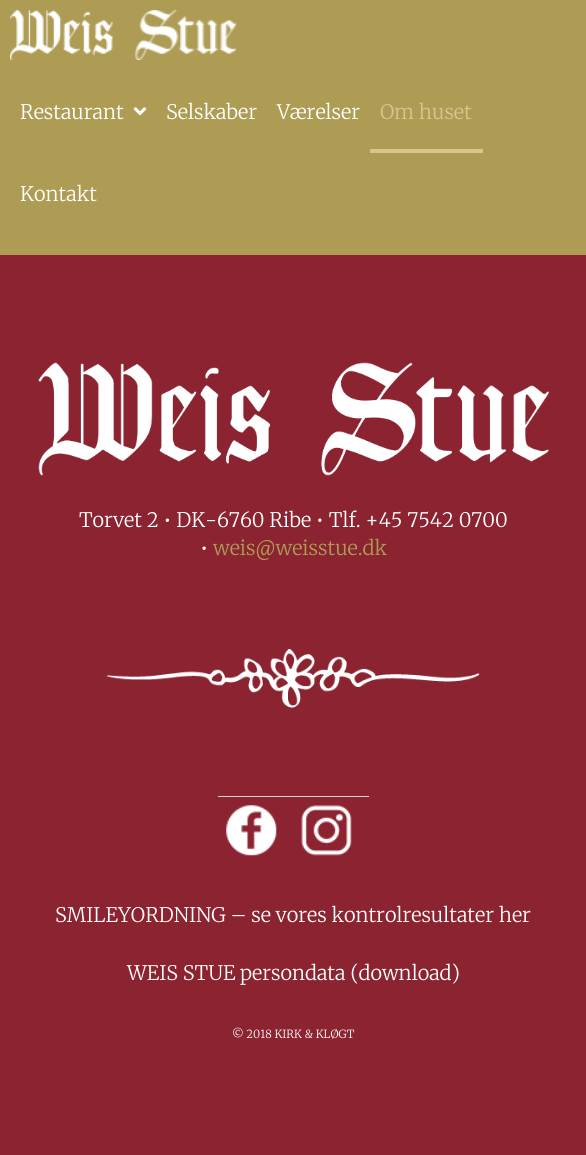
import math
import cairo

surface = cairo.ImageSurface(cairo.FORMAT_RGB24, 586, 1155)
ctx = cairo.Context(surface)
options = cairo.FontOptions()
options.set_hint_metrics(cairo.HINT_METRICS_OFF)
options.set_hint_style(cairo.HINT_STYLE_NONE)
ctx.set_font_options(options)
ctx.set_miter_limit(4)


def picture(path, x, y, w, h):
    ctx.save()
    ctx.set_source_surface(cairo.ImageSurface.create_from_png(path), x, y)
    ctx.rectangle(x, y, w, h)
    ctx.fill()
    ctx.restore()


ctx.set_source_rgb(0.545, 0.137, 0.192)
ctx.paint()
ctx.set_source_rgb(0.682, 0.612, 0.333)
ctx.rectangle(0, 0, 586, 255)
ctx.fill()
picture("img1.png", 10, 10, 226, 50)
ctx.select_font_face("Merriweather Light")
ctx.set_font_size(20)
ctx.set_source_rgb(1, 1, 1)
ctx.move_to(20, 119)
ctx.show_text("Restaurant")
picture("img2.png", 133, 107, 14, 9)
ctx.move_to(166, 119)
ctx.show_text("Selskaber")
ctx.move_to(277, 119)
ctx.show_text("Værelser")
ctx.set_source_rgb(0.839, 0.773, 0.565)
ctx.rectangle(370, 149, 113, 4)
ctx.fill()
ctx.move_to(380, 119)
ctx.show_text("Om huset")
ctx.set_source_rgb(1, 1, 1)
ctx.move_to(20, 201)
ctx.show_text("Kontakt")
picture("img3.png", 38, 362, 511, 114)
ctx.move_to(79, 527)
ctx.show_text("Torvet 2 • DK-6760 Ribe • Tlf. +45 7542 0700")
ctx.move_to(200, 555)
ctx.show_text("•")
ctx.set_source_rgb(0.682, 0.612, 0.333)
ctx.move_to(213, 555)
ctx.show_text("weis@weisstue.dk")
picture("img4.png", 106, 649, 374, 59)
ctx.set_source_rgb(0.827, 0.827, 0.827)
ctx.rectangle(218, 796, 151, 1)
ctx.fill()
picture("img5.png", 301, 805, 51, 51)
picture("img6.png", 226, 805, 51, 51)
ctx.set_source_rgb(1, 1, 1)
ctx.move_to(55, 922)
ctx.show_text("SMILEYORDNING – se vores kontrolresultater her")
ctx.move_to(127, 980)
ctx.show_text("WEIS STUE persondata (download)")
ctx.set_font_size(11.25)
ctx.move_to(232, 1038)
ctx.show_text("© 2018 KIRK & KLØGT")
surface.write_to_png("page.png")
